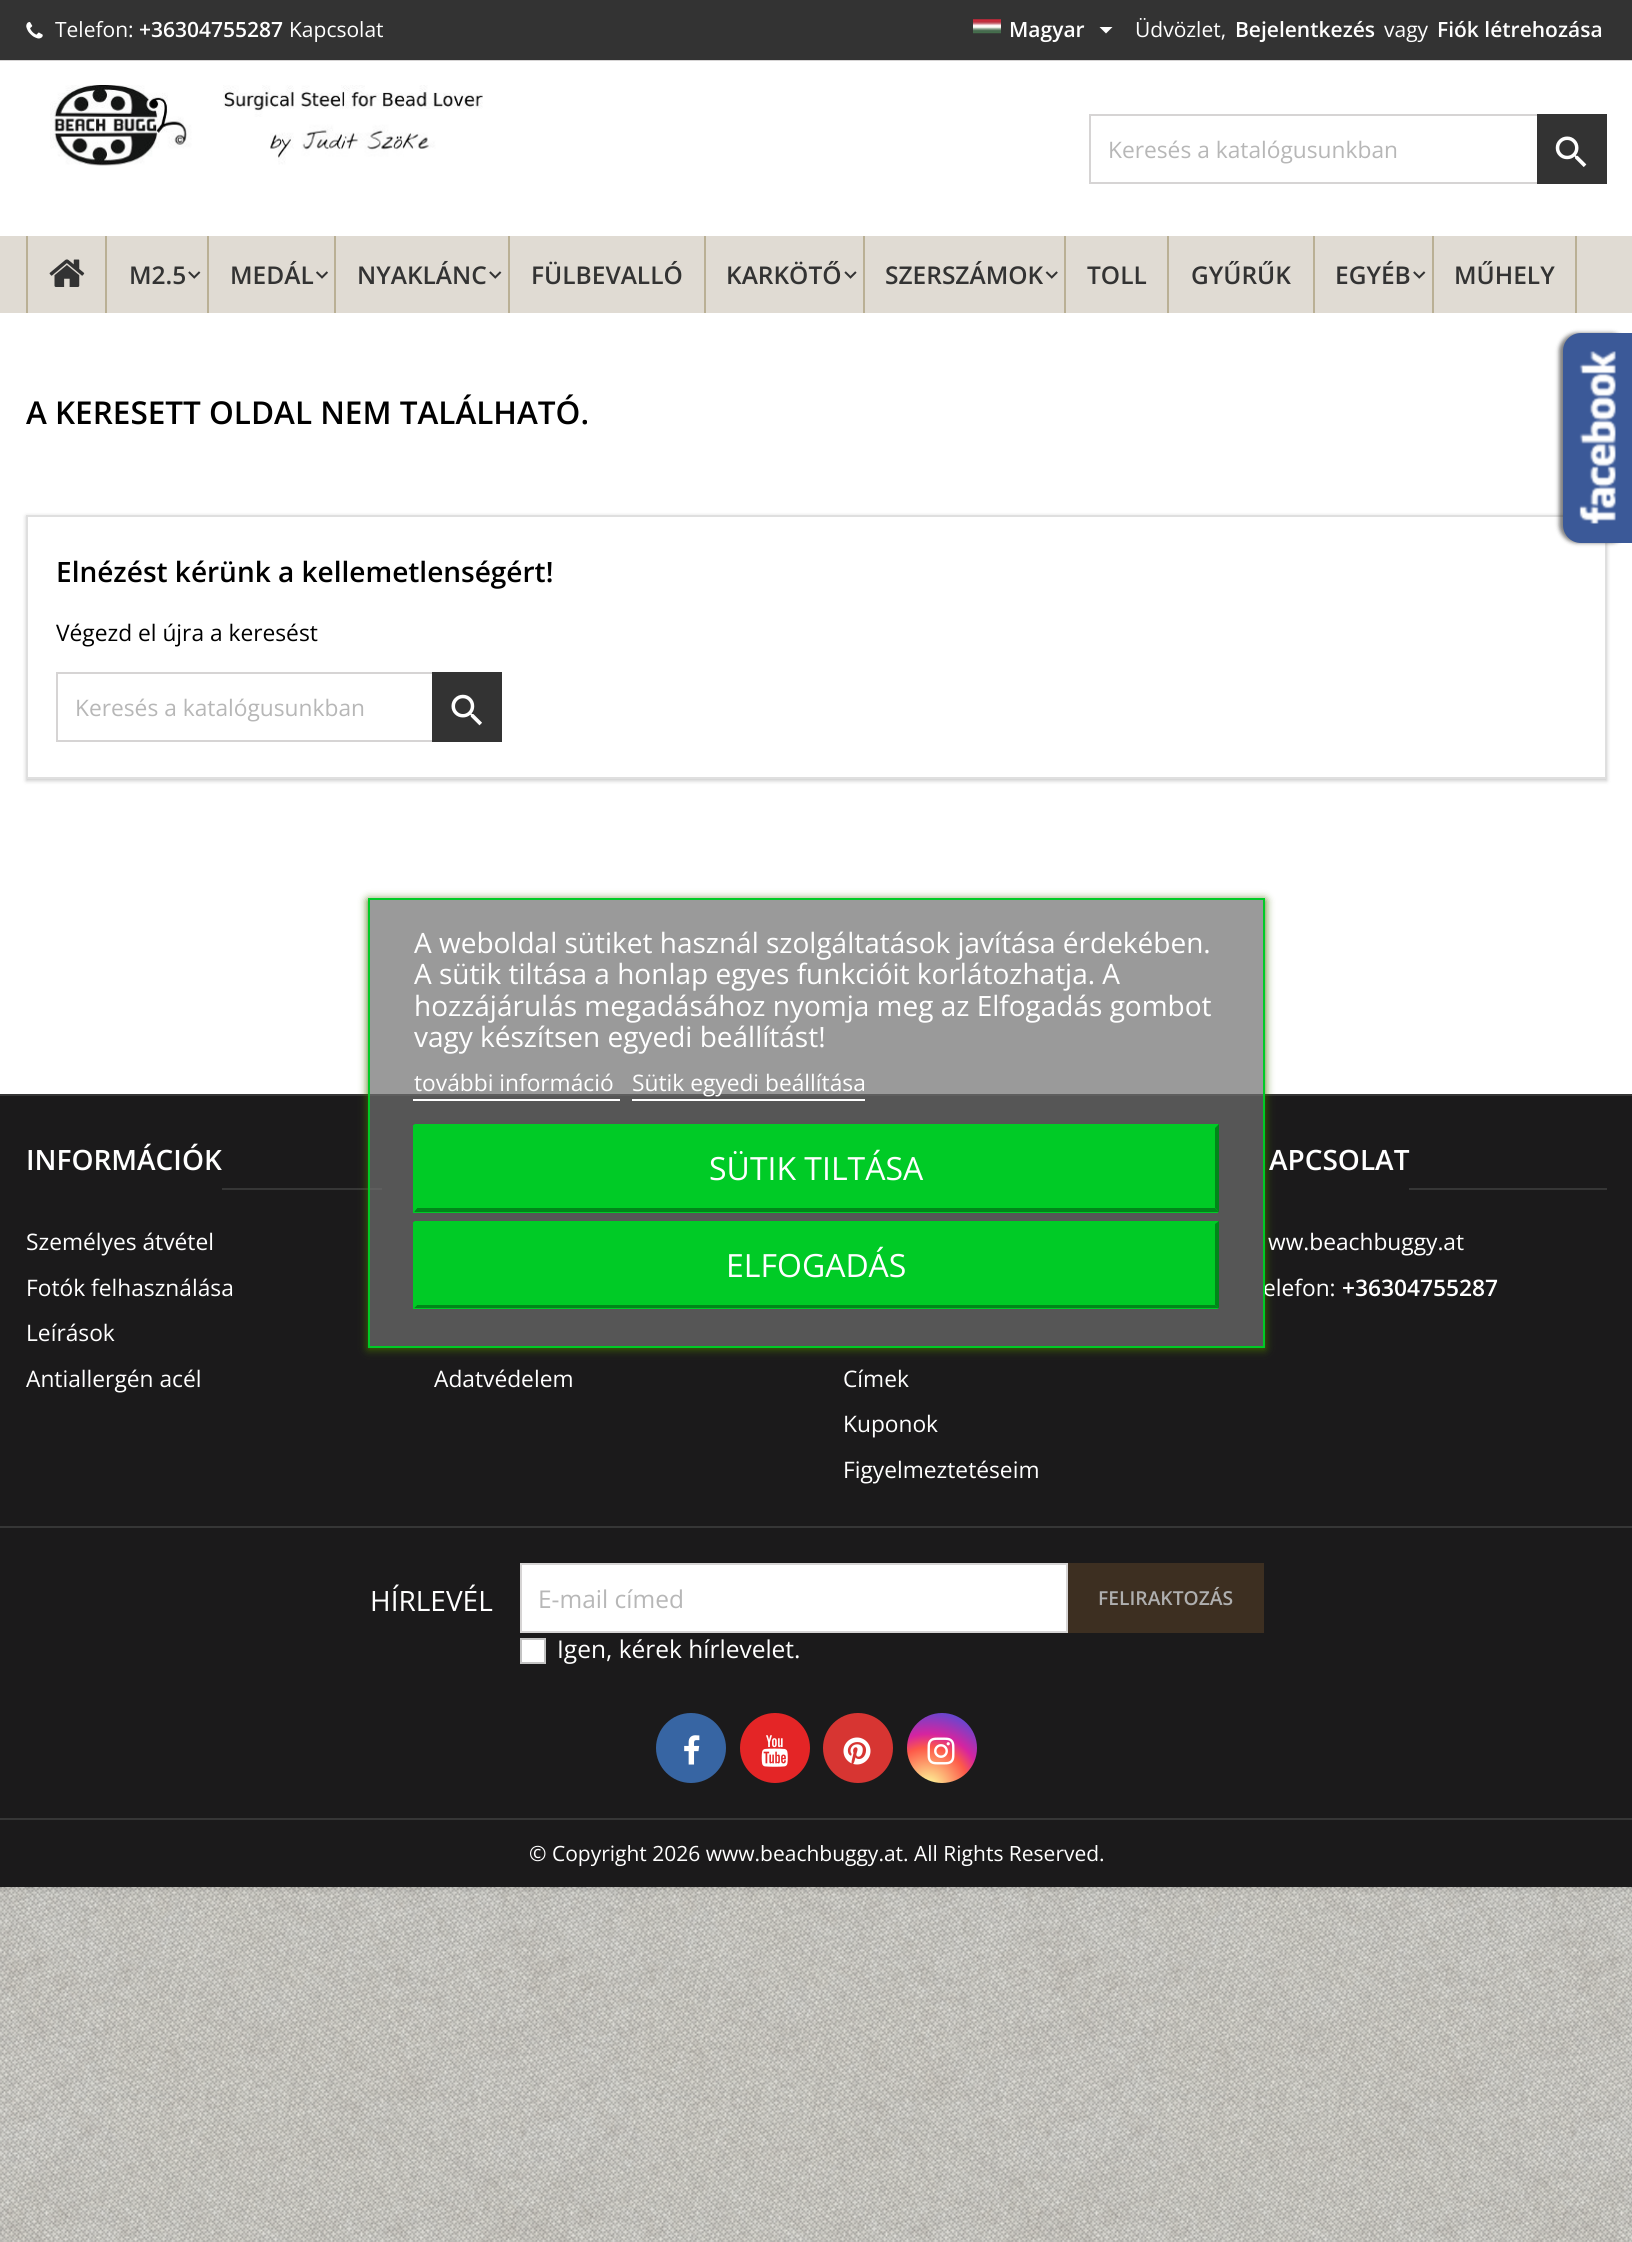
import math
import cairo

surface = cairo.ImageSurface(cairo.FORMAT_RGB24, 1632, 2242)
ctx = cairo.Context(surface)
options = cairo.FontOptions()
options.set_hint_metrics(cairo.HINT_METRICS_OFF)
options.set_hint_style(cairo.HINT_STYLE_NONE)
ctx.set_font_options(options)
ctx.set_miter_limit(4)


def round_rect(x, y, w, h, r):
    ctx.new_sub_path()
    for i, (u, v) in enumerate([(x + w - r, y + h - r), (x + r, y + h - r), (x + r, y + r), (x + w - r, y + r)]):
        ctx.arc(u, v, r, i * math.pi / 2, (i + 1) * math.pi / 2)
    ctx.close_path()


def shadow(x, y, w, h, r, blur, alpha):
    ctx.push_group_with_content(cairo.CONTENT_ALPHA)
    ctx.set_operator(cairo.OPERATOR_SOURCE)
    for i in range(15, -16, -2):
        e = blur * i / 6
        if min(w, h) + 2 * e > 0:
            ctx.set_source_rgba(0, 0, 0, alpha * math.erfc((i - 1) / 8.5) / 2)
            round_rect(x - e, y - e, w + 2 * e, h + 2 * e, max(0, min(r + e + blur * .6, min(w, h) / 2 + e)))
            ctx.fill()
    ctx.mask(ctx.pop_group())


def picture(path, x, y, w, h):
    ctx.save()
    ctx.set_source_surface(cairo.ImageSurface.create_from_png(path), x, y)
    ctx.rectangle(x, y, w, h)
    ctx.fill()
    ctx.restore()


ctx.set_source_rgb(1, 1, 1)
ctx.paint()
picture("img1.png", 0, 1887, 1632, 355)
ctx.set_source_rgb(0, 0, 0)
shadow(0, 0, 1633, 1887, 0, 3.5, 0.2)
ctx.set_source_rgb(1, 1, 1)
ctx.rectangle(0, 313, 1632, 781)
ctx.fill()
ctx.set_source_rgb(0.2, 0.2, 0.2)
ctx.rectangle(0, 0, 1632, 60)
ctx.fill()
ctx.set_source_rgb(0.839, 0.831, 0.831)
ctx.rectangle(0, 60, 1632, 1)
ctx.fill()
picture("img2.png", 26, 22, 17, 17)
ctx.select_font_face("Open Sans")
ctx.set_font_size(21)
ctx.set_source_rgb(1, 1, 1)
ctx.move_to(55, 37)
ctx.show_text("Telefon:")
ctx.select_font_face("Open Sans SemiBold")
ctx.move_to(139, 37)
ctx.show_text("+36304755287")
ctx.select_font_face("Open Sans")
ctx.move_to(289, 37)
ctx.show_text("Kapcsolat")
picture("img3.png", 973, 19, 28, 15)
ctx.select_font_face("Open Sans SemiBold")
ctx.move_to(1009, 37)
ctx.show_text("Magyar")
ctx.new_path()
ctx.move_to(1099.5, 27)
ctx.line_to(1112.5, 27)
ctx.line_to(1106, 33.5)
ctx.close_path()
ctx.fill()
ctx.select_font_face("Open Sans")
ctx.move_to(1135, 37)
ctx.show_text("Üdvözlet,")
ctx.select_font_face("Open Sans SemiBold")
ctx.move_to(1235, 37)
ctx.show_text("Bejelentkezés")
ctx.select_font_face("Open Sans")
ctx.move_to(1384, 37)
ctx.show_text("vagy")
ctx.select_font_face("Open Sans SemiBold")
ctx.move_to(1437, 37)
ctx.show_text("Fiók létrehozása")
ctx.rectangle(0, 61, 1632, 175)
ctx.fill()
picture("img4.png", 50, 85, 433, 81)
ctx.rectangle(1090, 115, 516, 68)
ctx.set_source_rgb(0.839, 0.831, 0.831)
ctx.stroke()
ctx.select_font_face("Open Sans")
ctx.set_font_size(22.75)
ctx.set_source_rgb(0.718, 0.718, 0.718)
ctx.move_to(1108, 158)
ctx.show_text("Keresés a katalógusunkban")
ctx.set_source_rgb(0.2, 0.2, 0.2)
ctx.rectangle(1537, 114, 70, 70)
ctx.fill()
picture("img5.png", 1555, 136, 32, 31)
ctx.set_source_rgb(0.878, 0.859, 0.827)
ctx.rectangle(0, 236, 1632, 77)
ctx.fill()
ctx.set_source_rgb(0.729, 0.69, 0.584)
ctx.rectangle(26, 236, 2, 77)
ctx.fill()
picture("img6.png", 49, 259, 36, 28)
ctx.rectangle(105, 236, 2, 77)
ctx.fill()
ctx.select_font_face("Open Sans SemiBold")
ctx.set_font_size(24.5)
ctx.set_source_rgb(0.2, 0.2, 0.2)
ctx.move_to(129, 284)
ctx.show_text("M2.5")
picture("img7.png", 188, 271, 13, 8)
ctx.set_source_rgb(0.729, 0.69, 0.584)
ctx.rectangle(207, 236, 2, 77)
ctx.fill()
ctx.set_source_rgb(0.2, 0.2, 0.2)
ctx.move_to(230, 284)
ctx.show_text("MEDÁL")
picture("img8.png", 316, 271, 12, 8)
ctx.set_source_rgb(0.729, 0.69, 0.584)
ctx.rectangle(334, 236, 2, 77)
ctx.fill()
ctx.set_source_rgb(0.2, 0.2, 0.2)
ctx.move_to(357, 284)
ctx.show_text("NYAKLÁNC")
picture("img7.png", 489, 271, 13, 8)
ctx.set_source_rgb(0.729, 0.69, 0.584)
ctx.rectangle(508, 236, 2, 77)
ctx.fill()
ctx.set_source_rgb(0.2, 0.2, 0.2)
ctx.move_to(531, 284)
ctx.show_text("FÜLBEVALLÓ")
ctx.set_source_rgb(0.729, 0.69, 0.584)
ctx.rectangle(704, 236, 2, 77)
ctx.fill()
ctx.set_source_rgb(0.2, 0.2, 0.2)
ctx.move_to(726, 284)
ctx.show_text("KARKÖTŐ")
picture("img9.png", 844, 271, 13, 8)
ctx.set_source_rgb(0.729, 0.69, 0.584)
ctx.rectangle(863, 236, 2, 77)
ctx.fill()
ctx.set_source_rgb(0.2, 0.2, 0.2)
ctx.move_to(885, 284)
ctx.show_text("SZERSZÁMOK")
picture("img10.png", 1045, 271, 13, 8)
ctx.set_source_rgb(0.729, 0.69, 0.584)
ctx.rectangle(1064, 236, 2, 77)
ctx.fill()
ctx.set_source_rgb(0.2, 0.2, 0.2)
ctx.move_to(1087, 284)
ctx.show_text("TOLL")
ctx.set_source_rgb(0.729, 0.69, 0.584)
ctx.rectangle(1167, 236, 2, 77)
ctx.fill()
ctx.set_source_rgb(0.2, 0.2, 0.2)
ctx.move_to(1191, 284)
ctx.show_text("GYŰRŰK")
ctx.set_source_rgb(0.729, 0.69, 0.584)
ctx.rectangle(1313, 236, 2, 77)
ctx.fill()
ctx.set_source_rgb(0.2, 0.2, 0.2)
ctx.move_to(1335, 284)
ctx.show_text("EGYÉB")
picture("img7.png", 1413, 271, 13, 8)
ctx.set_source_rgb(0.729, 0.69, 0.584)
ctx.rectangle(1575, 236, 2, 77)
ctx.fill()
ctx.rectangle(1432, 236, 2, 77)
ctx.fill()
ctx.set_source_rgb(0.2, 0.2, 0.2)
ctx.move_to(1454, 284)
ctx.show_text("MŰHELY")
ctx.set_font_size(31.5)
ctx.set_source_rgb(0, 0, 0)
ctx.move_to(26, 424)
ctx.show_text("A KERESETT OLDAL NEM TALÁLHATÓ.")
ctx.set_source_rgb(0, 0, 0)
shadow(26, 516, 1581, 265, 0, 2, 0.2)
ctx.set_source_rgb(1, 1, 1)
ctx.rectangle(27, 516, 1579, 262)
ctx.fill_preserve()
ctx.set_source_rgb(0.875, 0.875, 0.875)
ctx.stroke()
ctx.set_font_size(28)
ctx.set_source_rgb(0, 0, 0)
ctx.move_to(56, 582)
ctx.show_text("Elnézést kérünk a kellemetlenségért!")
ctx.select_font_face("Open Sans")
ctx.set_font_size(22.75)
ctx.move_to(56, 641)
ctx.show_text("Végezd el újra a keresést")
ctx.rectangle(57, 673, 444, 68)
ctx.set_source_rgb(0.839, 0.831, 0.831)
ctx.stroke()
ctx.set_source_rgb(0.718, 0.718, 0.718)
ctx.move_to(75, 716)
ctx.show_text("Keresés a katalógusunkban")
ctx.set_source_rgb(0.2, 0.2, 0.2)
ctx.rectangle(432, 672, 70, 70)
ctx.fill()
picture("img11.png", 451, 694, 31, 32)
ctx.set_source_rgb(0, 0, 0)
shadow(1559, 333, 70, 210, 18, 2, 0.5)
ctx.set_source_rgb(0.231, 0.349, 0.596)
ctx.new_path()
ctx.move_to(1581, 333)
ctx.line_to(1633, 333)
ctx.line_to(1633, 543)
ctx.line_to(1581, 543)
ctx.curve_to(1571, 543, 1563, 535, 1563, 525)
ctx.line_to(1563, 351)
ctx.curve_to(1563, 341, 1571, 333, 1581, 333)
ctx.close_path()
ctx.fill()
picture("img12.png", 1579, 351, 37, 173)
ctx.set_source_rgb(0.106, 0.102, 0.106)
ctx.rectangle(0, 1096, 1632, 791)
ctx.fill()
ctx.set_source_rgb(0.212, 0.212, 0.212)
ctx.rectangle(0, 1094, 1632, 2)
ctx.fill()
ctx.rectangle(222, 1188, 160, 2)
ctx.fill()
ctx.select_font_face("Open Sans SemiBold")
ctx.set_font_size(28)
ctx.set_source_rgb(1, 1, 1)
ctx.move_to(26, 1170)
ctx.show_text("INFORMÁCIÓK")
ctx.select_font_face("Open Sans")
ctx.set_font_size(22.75)
ctx.move_to(26, 1250)
ctx.show_text("Személyes átvétel")
ctx.move_to(26, 1296)
ctx.show_text("Fotók felhasználása")
ctx.move_to(26, 1341)
ctx.show_text("Leírások")
ctx.move_to(26, 1387)
ctx.show_text("Antiallergén acél")
ctx.save()
ctx.set_fill_rule(cairo.FILL_RULE_EVEN_ODD)
ctx.new_path()
ctx.move_to(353, 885)
ctx.line_to(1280, 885)
ctx.line_to(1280, 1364)
ctx.line_to(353, 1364)
ctx.close_path()
ctx.move_to(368, 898)
ctx.line_to(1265, 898)
ctx.line_to(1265, 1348)
ctx.line_to(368, 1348)
ctx.close_path()
ctx.clip()
ctx.set_source_rgb(0.263, 0.439, 0)
shadow(368, 900, 897, 449, 0, 4.5, 1)
ctx.restore()
ctx.move_to(1263, 1296)
ctx.show_text("elefon:")
ctx.set_source_rgba(0.439, 0.439, 0.439, 0.7)
ctx.rectangle(369, 899, 895, 448)
ctx.fill_preserve()
ctx.set_source_rgb(0, 0.796, 0.149)
ctx.stroke()
ctx.set_font_size(28)
ctx.set_source_rgb(1, 1, 1)
ctx.move_to(414, 953)
ctx.show_text("A weboldal sütiket használ szolgáltatások javítása érdekében.")
ctx.move_to(414, 984)
ctx.show_text("A sütik tiltása a honlap egyes funkcióit korlátozhatja. A")
ctx.move_to(414, 1016)
ctx.show_text("hozzájárulás megadásához nyomja meg az Elfogadás gombot")
ctx.move_to(414, 1047)
ctx.show_text("vagy készítsen egyedi beállítást!")
ctx.set_font_size(22.75)
ctx.move_to(414, 1091)
ctx.show_text("további információ")
ctx.rectangle(413, 1099, 207, 2)
ctx.fill()
ctx.move_to(632, 1091)
ctx.show_text("Sütik egyedi beállítása")
ctx.rectangle(632, 1099, 233, 2)
ctx.fill()
ctx.set_source_rgb(0, 0.796, 0.149)
ctx.rectangle(413, 1125, 805, 88)
ctx.fill()
ctx.new_path()
ctx.move_to(414, 1124)
ctx.line_to(1219, 1124)
ctx.line_to(1215, 1128)
ctx.line_to(417, 1128)
ctx.close_path()
ctx.fill()
ctx.set_source_rgb(0, 0.529, 0.098)
ctx.new_path()
ctx.move_to(1219, 1124)
ctx.line_to(1219, 1212)
ctx.line_to(1215, 1208)
ctx.line_to(1215, 1128)
ctx.close_path()
ctx.fill()
ctx.new_path()
ctx.move_to(1219, 1212)
ctx.line_to(414, 1212)
ctx.line_to(417, 1208)
ctx.line_to(1215, 1208)
ctx.close_path()
ctx.fill()
ctx.set_source_rgb(0, 0.796, 0.149)
ctx.new_path()
ctx.move_to(414, 1212)
ctx.line_to(414, 1124)
ctx.line_to(417, 1128)
ctx.line_to(417, 1208)
ctx.close_path()
ctx.fill()
ctx.set_font_size(32)
ctx.set_source_rgb(1, 1, 1)
ctx.move_to(709, 1180)
ctx.show_text("SÜTIK TILTÁSA")
ctx.set_source_rgb(0, 0.796, 0.149)
ctx.rectangle(413, 1222, 805, 87)
ctx.fill()
ctx.new_path()
ctx.move_to(414, 1221)
ctx.line_to(1219, 1221)
ctx.line_to(1215, 1224)
ctx.line_to(417, 1224)
ctx.close_path()
ctx.fill()
ctx.set_source_rgb(0, 0.529, 0.098)
ctx.new_path()
ctx.move_to(1219, 1221)
ctx.line_to(1219, 1308)
ctx.line_to(1215, 1305)
ctx.line_to(1215, 1224)
ctx.close_path()
ctx.fill()
ctx.new_path()
ctx.move_to(1219, 1308)
ctx.line_to(414, 1308)
ctx.line_to(417, 1305)
ctx.line_to(1215, 1305)
ctx.close_path()
ctx.fill()
ctx.set_source_rgb(0, 0.796, 0.149)
ctx.new_path()
ctx.move_to(414, 1308)
ctx.line_to(414, 1221)
ctx.line_to(417, 1224)
ctx.line_to(417, 1305)
ctx.close_path()
ctx.fill()
ctx.set_source_rgb(1, 1, 1)
ctx.move_to(726, 1277)
ctx.show_text("ELFOGADÁS")
ctx.set_source_rgb(0.212, 0.212, 0.212)
ctx.rectangle(1409, 1188, 198, 2)
ctx.fill()
ctx.select_font_face("Open Sans SemiBold")
ctx.set_font_size(28)
ctx.set_source_rgb(1, 1, 1)
ctx.move_to(1269, 1170)
ctx.show_text("APCSOLAT")
ctx.select_font_face("Open Sans")
ctx.set_font_size(22.75)
ctx.move_to(1268, 1250)
ctx.show_text("ww.beachbuggy.at")
ctx.select_font_face("Open Sans SemiBold")
ctx.move_to(1342, 1296)
ctx.show_text("+36304755287")
ctx.select_font_face("Open Sans")
ctx.move_to(434, 1387)
ctx.show_text("Adatvédelem")
ctx.move_to(843, 1387)
ctx.show_text("Címek")
ctx.move_to(843, 1432)
ctx.show_text("Kuponok")
ctx.move_to(843, 1478)
ctx.show_text("Figyelmeztetéseim")
ctx.set_source_rgb(0.212, 0.212, 0.212)
ctx.rectangle(0, 1526, 1632, 2)
ctx.fill()
ctx.set_font_size(28)
ctx.set_source_rgb(1, 1, 1)
ctx.move_to(370, 1611)
ctx.show_text("HÍRLEVÉL")
ctx.rectangle(521, 1564, 546, 68)
ctx.fill_preserve()
ctx.set_source_rgb(0.839, 0.831, 0.831)
ctx.stroke()
ctx.set_font_size(24.5)
ctx.set_source_rgb(0.718, 0.718, 0.718)
ctx.move_to(538, 1608)
ctx.show_text("E-mail címed")
ctx.set_source_rgb(0.239, 0.184, 0.129)
ctx.rectangle(1068, 1563, 196, 70)
ctx.fill()
ctx.select_font_face("Open Sans SemiBold")
ctx.set_font_size(19.25)
ctx.set_source_rgb(0.686, 0.686, 0.686)
ctx.move_to(1098, 1605)
ctx.show_text("FELIRAKTOZÁS")
ctx.set_source_rgb(1, 1, 1)
ctx.rectangle(521, 1639, 24, 24)
ctx.fill_preserve()
ctx.set_source_rgb(0.765, 0.765, 0.765)
ctx.stroke()
ctx.select_font_face("Open Sans")
ctx.set_font_size(24.5)
ctx.set_source_rgb(1, 1, 1)
ctx.move_to(557, 1658)
ctx.show_text("Igen, kérek hírlevelet.")
ctx.set_source_rgb(0.216, 0.396, 0.639)
ctx.new_path()
ctx.arc(691, 1748, 35, 0, 2 * math.pi)
ctx.fill()
picture("img13.png", 684, 1735, 16, 30)
ctx.set_source_rgb(0.894, 0.145, 0.149)
ctx.arc(775, 1748, 35, 0, 2 * math.pi)
ctx.fill()
picture("img14.png", 761, 1735, 27, 32)
ctx.set_source_rgb(0.843, 0.208, 0.196)
ctx.arc(858, 1748, 35, 0, 2 * math.pi)
ctx.fill()
picture("img15.png", 843, 1737, 28, 28)
gradient = cairo.RadialGradient(928, 1788, 0, 928, 1788, 90)
gradient.add_color_stop_rgba(0, 0.992, 0.957, 0.592, 1)
gradient.add_color_stop_rgba(0.05, 0.992, 0.957, 0.592, 1)
gradient.add_color_stop_rgba(0.45, 0.992, 0.349, 0.286, 1)
gradient.add_color_stop_rgba(0.6, 0.839, 0.141, 0.624, 1)
gradient.add_color_stop_rgba(1, 0.157, 0.353, 0.922, 1)
ctx.set_source(gradient)
ctx.arc(942, 1748, 35, 0, 2 * math.pi)
ctx.fill()
picture("img16.png", 927, 1737, 28, 28)
ctx.set_source_rgb(0.212, 0.212, 0.212)
ctx.rectangle(0, 1818, 1632, 2)
ctx.fill()
ctx.set_font_size(21)
ctx.set_source_rgb(1, 1, 1)
ctx.move_to(529, 1861)
ctx.show_text("© Copyright 2026 www.beachbuggy.at. All Rights Reserved.")
surface.write_to_png("page.png")
